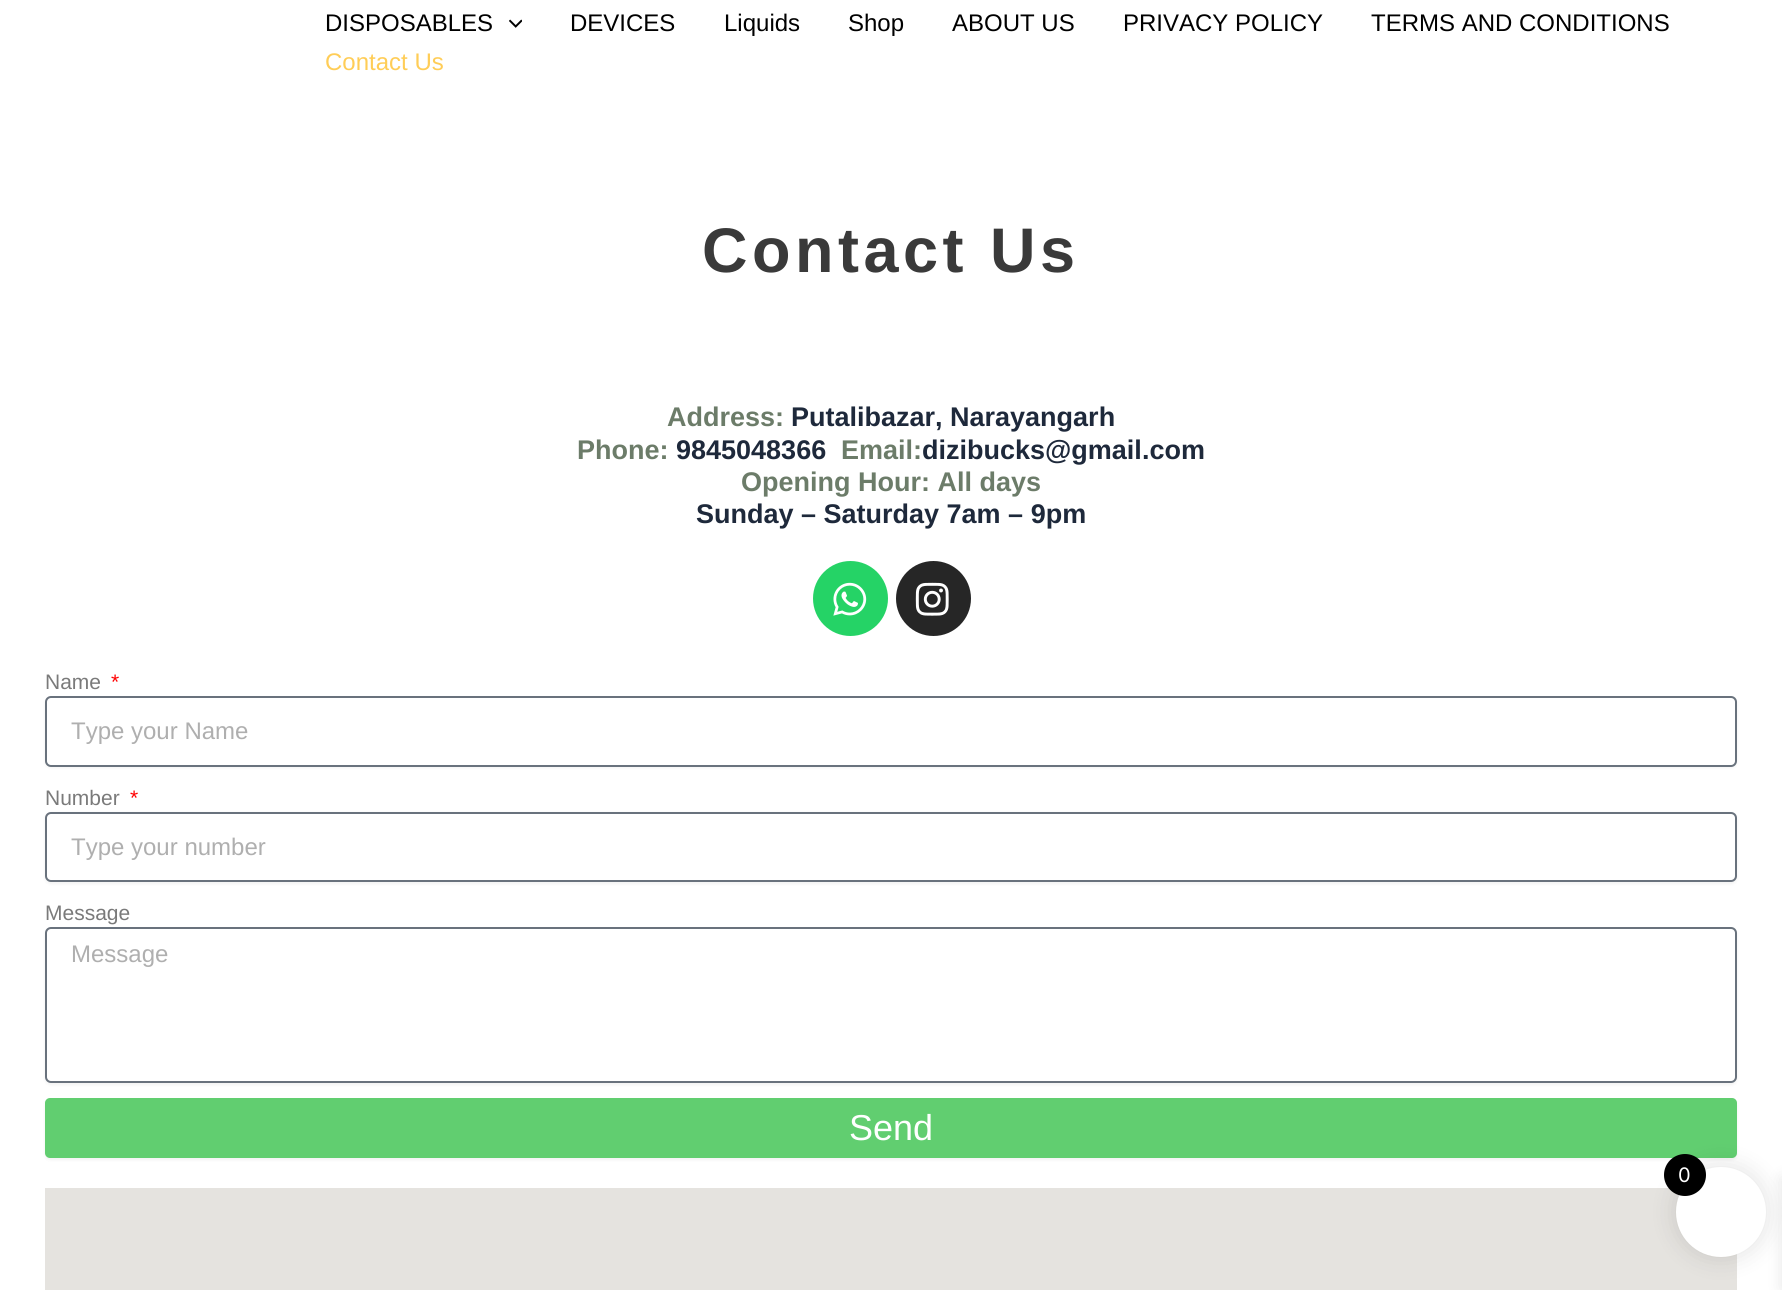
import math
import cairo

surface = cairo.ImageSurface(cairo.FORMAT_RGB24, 1782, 1290)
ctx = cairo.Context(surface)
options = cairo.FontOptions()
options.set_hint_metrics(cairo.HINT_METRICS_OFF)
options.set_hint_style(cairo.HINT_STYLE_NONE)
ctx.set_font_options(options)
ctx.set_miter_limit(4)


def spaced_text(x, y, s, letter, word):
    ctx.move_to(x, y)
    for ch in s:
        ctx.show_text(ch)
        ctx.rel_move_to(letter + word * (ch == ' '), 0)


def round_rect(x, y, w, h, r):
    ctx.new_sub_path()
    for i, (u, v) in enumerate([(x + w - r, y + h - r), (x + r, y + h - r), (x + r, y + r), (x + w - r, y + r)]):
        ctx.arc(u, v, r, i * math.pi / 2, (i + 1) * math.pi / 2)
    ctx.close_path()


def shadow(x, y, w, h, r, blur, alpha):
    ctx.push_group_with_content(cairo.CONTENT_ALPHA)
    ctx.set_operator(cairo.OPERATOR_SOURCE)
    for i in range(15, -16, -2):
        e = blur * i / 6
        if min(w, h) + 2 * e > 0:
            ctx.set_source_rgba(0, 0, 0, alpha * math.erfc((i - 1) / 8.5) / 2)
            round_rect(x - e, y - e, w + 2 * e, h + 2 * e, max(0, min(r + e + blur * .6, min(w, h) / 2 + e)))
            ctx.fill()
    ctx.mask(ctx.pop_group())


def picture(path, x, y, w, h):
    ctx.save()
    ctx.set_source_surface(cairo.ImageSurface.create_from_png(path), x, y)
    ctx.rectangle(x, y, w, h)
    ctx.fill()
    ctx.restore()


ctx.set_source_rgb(1, 1, 1)
ctx.paint()
ctx.select_font_face("Liberation Sans")
ctx.set_font_size(24)
ctx.set_source_rgb(0, 0, 0)
ctx.move_to(325, 31)
ctx.show_text("DISPOSABLES")
picture("img1.png", 509, 19, 13, 9)
ctx.move_to(570, 31)
ctx.show_text("DEVICES")
ctx.move_to(724, 31)
ctx.show_text("Liquids")
ctx.move_to(848, 31)
ctx.show_text("Shop")
ctx.move_to(952, 31)
ctx.show_text("ABOUT US")
ctx.move_to(1123, 31)
ctx.show_text("PRIVACY POLICY")
ctx.move_to(1371, 31)
ctx.show_text("TERMS AND CONDITIONS")
ctx.set_source_rgb(1, 0.804, 0.341)
ctx.move_to(325, 70)
ctx.show_text("Contact Us")
ctx.select_font_face("Liberation Sans", cairo.FONT_SLANT_NORMAL, cairo.FONT_WEIGHT_BOLD)
ctx.set_font_size(63)
ctx.set_source_rgb(0.227, 0.227, 0.227)
spaced_text(702, 272, "Contact Us", 4.5, 0)
ctx.set_font_size(27)
ctx.set_source_rgb(0.424, 0.486, 0.412)
ctx.move_to(667, 426)
ctx.show_text("Address:")
ctx.set_source_rgb(0.118, 0.161, 0.231)
ctx.move_to(791, 426)
ctx.show_text("Putalibazar, Narayangarh")
ctx.set_source_rgb(0.424, 0.486, 0.412)
ctx.move_to(577, 459)
ctx.show_text("Phone:")
ctx.set_source_rgb(0.118, 0.161, 0.231)
ctx.move_to(676, 459)
ctx.show_text("9845048366")
ctx.set_source_rgb(0.424, 0.486, 0.412)
ctx.move_to(841, 459)
ctx.show_text("Email:")
ctx.set_source_rgb(0.118, 0.161, 0.231)
ctx.move_to(922, 459)
ctx.show_text("dizibucks@gmail.com")
ctx.set_source_rgb(0.424, 0.486, 0.412)
ctx.move_to(741, 491)
ctx.show_text("Opening Hour: All days")
ctx.set_source_rgb(0.118, 0.161, 0.231)
ctx.move_to(696, 523)
ctx.show_text("Sunday – Saturday 7am – 9pm")
ctx.set_source_rgb(0.145, 0.827, 0.4)
ctx.new_path()
ctx.arc(850.5, 598.5, 37.5, 0, 2 * math.pi)
ctx.fill()
picture("img2.png", 833, 582, 34, 34)
ctx.set_source_rgb(0.149, 0.149, 0.149)
ctx.arc(933.5, 598.5, 37.5, 0, 2 * math.pi)
ctx.fill()
picture("img3.png", 915, 582, 34, 34)
ctx.select_font_face("Liberation Sans")
ctx.set_font_size(21)
ctx.set_source_rgb(0.478, 0.478, 0.478)
ctx.move_to(45, 689)
ctx.show_text("Name")
ctx.set_source_rgb(1, 0, 0)
ctx.move_to(111, 689)
ctx.show_text("*")
ctx.set_source_rgb(0, 0, 0)
shadow(45, 698, 1692, 70, 6, 1.5, 0.05)
ctx.set_source_rgb(1, 1, 1)
round_rect(46, 697, 1690, 69, 5)
ctx.fill_preserve()
ctx.set_source_rgb(0.412, 0.447, 0.49)
ctx.stroke()
ctx.set_font_size(24)
ctx.set_source_rgb(0.686, 0.686, 0.686)
ctx.move_to(71, 739)
ctx.show_text("Type your Name")
ctx.set_font_size(21)
ctx.set_source_rgb(0.478, 0.478, 0.478)
ctx.move_to(45, 805)
ctx.show_text("Number")
ctx.set_source_rgb(1, 0, 0)
ctx.move_to(130, 805)
ctx.show_text("*")
ctx.set_source_rgb(0, 0, 0)
shadow(45, 813, 1692, 71, 6, 1.5, 0.05)
ctx.set_source_rgb(1, 1, 1)
round_rect(46, 813, 1690, 68, 5)
ctx.fill_preserve()
ctx.set_source_rgb(0.412, 0.447, 0.49)
ctx.stroke()
ctx.set_font_size(24)
ctx.set_source_rgb(0.686, 0.686, 0.686)
ctx.move_to(71, 855)
ctx.show_text("Type your number")
ctx.set_font_size(21)
ctx.set_source_rgb(0.478, 0.478, 0.478)
ctx.move_to(45, 920)
ctx.show_text("Message")
ctx.set_source_rgb(0, 0, 0)
shadow(45, 929, 1692, 156, 6, 1.5, 0.05)
ctx.set_source_rgb(1, 1, 1)
round_rect(46, 928, 1690, 154, 5)
ctx.fill_preserve()
ctx.set_source_rgb(0.412, 0.447, 0.49)
ctx.stroke()
ctx.set_font_size(24)
ctx.set_source_rgb(0.686, 0.686, 0.686)
ctx.move_to(71, 962)
ctx.show_text("Message")
ctx.set_source_rgb(0, 0, 0)
shadow(45, 1100, 1692, 60, 5, 1.5, 0.05)
ctx.set_source_rgb(0.38, 0.808, 0.439)
round_rect(45, 1098, 1692, 60, 5)
ctx.fill()
ctx.set_font_size(36)
ctx.set_source_rgb(1, 1, 1)
ctx.move_to(849, 1140)
ctx.show_text("Send")
ctx.set_source_rgb(0.898, 0.89, 0.875)
ctx.rectangle(45, 1188, 1692, 102)
ctx.fill()
ctx.set_source_rgb(0, 0, 0)
shadow(1673, 1164, 96, 96, 48, 11, 0.1)
shadow(1782, 1178, 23, 111, 0, 7.5, 0.1)
ctx.set_source_rgb(1, 1, 1)
ctx.arc(1721, 1212, 45, 0, 2 * math.pi)
ctx.fill()
ctx.set_source_rgb(0, 0, 0)
ctx.arc(1685, 1175, 21, 0, 2 * math.pi)
ctx.fill()
ctx.select_font_face("Inter")
ctx.set_font_size(20)
ctx.set_source_rgb(1, 1, 1)
ctx.move_to(1678, 1182)
ctx.show_text("0")
surface.write_to_png("page.png")
